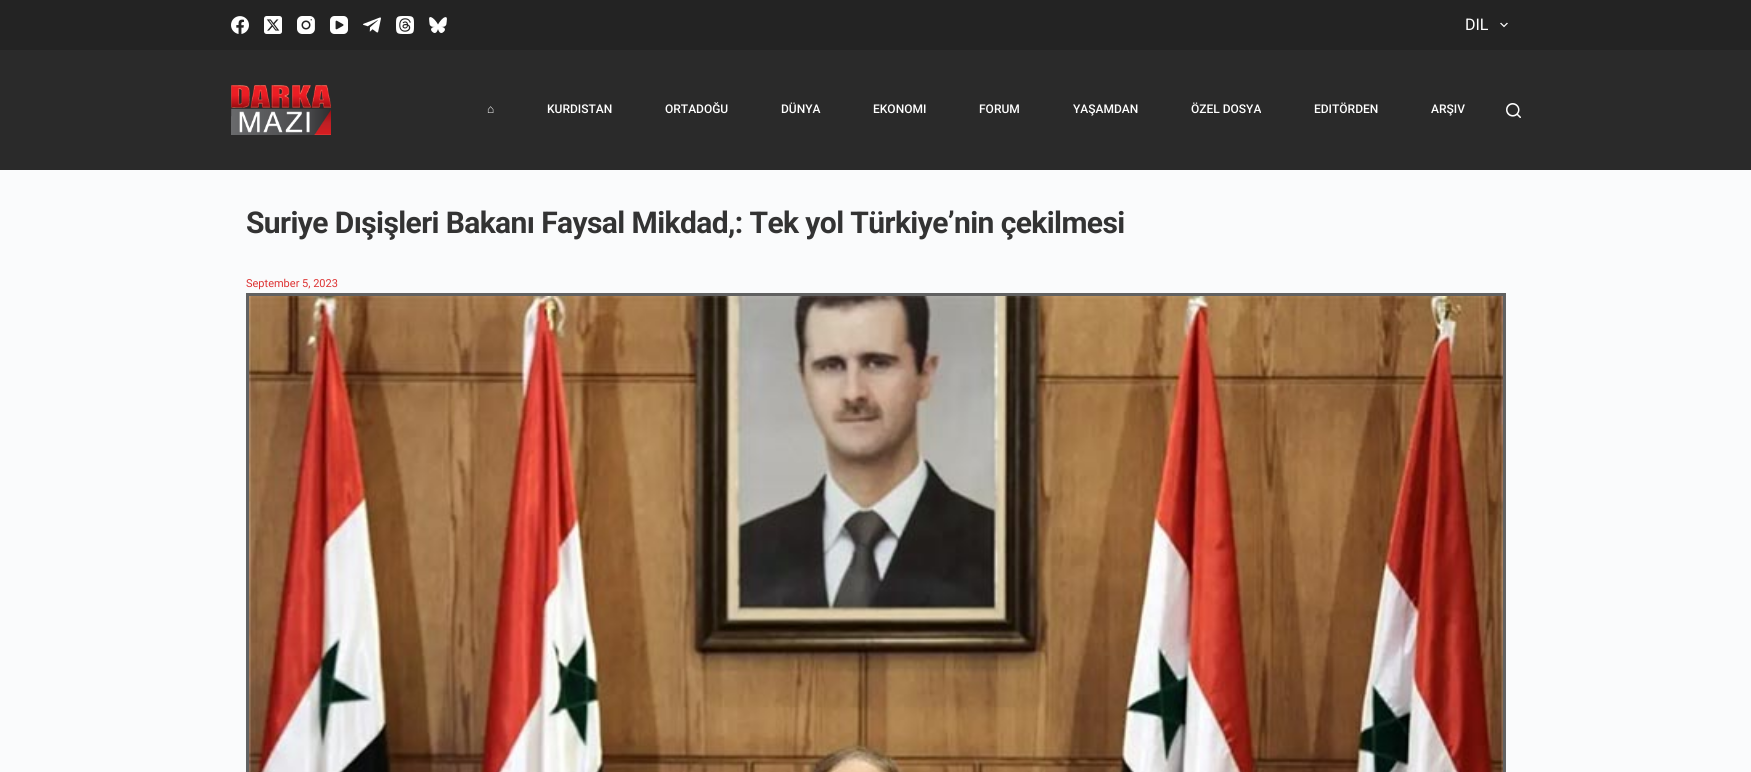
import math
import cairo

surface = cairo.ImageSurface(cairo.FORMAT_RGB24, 1751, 772)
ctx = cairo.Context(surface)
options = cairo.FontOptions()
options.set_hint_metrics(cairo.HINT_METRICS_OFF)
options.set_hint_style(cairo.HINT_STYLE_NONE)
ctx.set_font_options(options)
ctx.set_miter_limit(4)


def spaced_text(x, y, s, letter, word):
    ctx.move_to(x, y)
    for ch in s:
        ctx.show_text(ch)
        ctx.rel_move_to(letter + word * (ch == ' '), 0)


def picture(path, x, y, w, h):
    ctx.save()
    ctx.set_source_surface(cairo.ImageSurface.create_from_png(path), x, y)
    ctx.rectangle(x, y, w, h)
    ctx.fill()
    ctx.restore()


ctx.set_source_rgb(0.98, 0.984, 0.988)
ctx.paint()
ctx.set_source_rgb(0.137, 0.137, 0.137)
ctx.rectangle(0, 0, 1751, 50)
ctx.fill()
picture("img1.png", 231, 16, 18, 18)
picture("img2.png", 264, 16, 18, 18)
picture("img3.png", 297, 16, 18, 18)
picture("img4.png", 330, 16, 18, 18)
picture("img5.png", 363, 17, 18, 16)
picture("img6.png", 396, 16, 18, 18)
picture("img7.png", 429, 17, 18, 16)
ctx.select_font_face("Roboto")
ctx.set_font_size(16)
ctx.set_source_rgb(1, 1, 1)
ctx.move_to(1465, 30)
ctx.show_text("DIL")
picture("img8.png", 1500, 22, 8, 6)
ctx.set_source_rgb(0.165, 0.165, 0.165)
ctx.rectangle(0, 50, 1751, 120)
ctx.fill()
picture("img9.png", 231, 85, 100, 50)
ctx.select_font_face("Liberation Sans")
ctx.set_font_size(12)
ctx.set_source_rgb(1, 1, 1)
ctx.move_to(487, 113)
ctx.show_text("⌂")
ctx.select_font_face("Roboto Medium")
ctx.move_to(547, 113)
ctx.show_text("KURDISTAN")
ctx.move_to(665, 113)
ctx.show_text("ORTADOĞU")
ctx.move_to(781, 113)
ctx.show_text("DÜNYA")
ctx.move_to(873, 113)
ctx.show_text("EKONOMI")
ctx.move_to(979, 113)
ctx.show_text("FORUM")
ctx.move_to(1073, 113)
ctx.show_text("YAŞAMDAN")
ctx.move_to(1191, 113)
ctx.show_text("ÖZEL DOSYA")
ctx.move_to(1314, 113)
ctx.show_text("EDITÖRDEN")
ctx.move_to(1431, 113)
ctx.show_text("ARŞIV")
picture("img10.png", 1506, 103, 15, 15)
ctx.select_font_face("Roboto", cairo.FONT_SLANT_NORMAL, cairo.FONT_WEIGHT_BOLD)
ctx.set_font_size(30)
ctx.set_source_rgb(0.2, 0.2, 0.2)
spaced_text(246, 233, "Suriye Dışişleri Bakanı Faysal Mikdad,: Tek yol Türkiye’nin çekilmesi", -0.6, 0)
ctx.select_font_face("Roboto")
ctx.set_font_size(11)
ctx.set_source_rgb(0.867, 0.2, 0.2)
ctx.move_to(246, 287)
ctx.show_text("September 5, 2023")
ctx.rectangle(247.5, 294.5, 1257, 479)
ctx.set_source_rgb(0.38, 0.38, 0.38)
ctx.set_line_width(3)
ctx.stroke()
picture("img11.png", 249, 296, 1254, 476)
surface.write_to_png("page.png")
